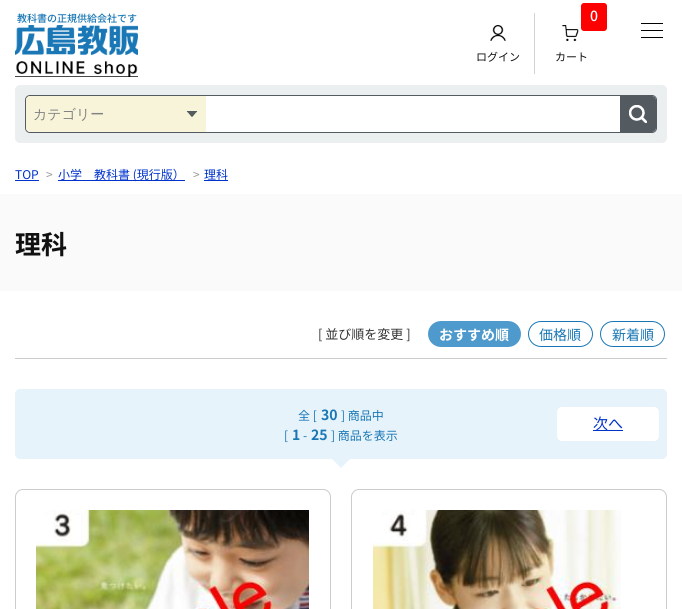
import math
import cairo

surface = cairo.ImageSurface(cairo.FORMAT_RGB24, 682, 609)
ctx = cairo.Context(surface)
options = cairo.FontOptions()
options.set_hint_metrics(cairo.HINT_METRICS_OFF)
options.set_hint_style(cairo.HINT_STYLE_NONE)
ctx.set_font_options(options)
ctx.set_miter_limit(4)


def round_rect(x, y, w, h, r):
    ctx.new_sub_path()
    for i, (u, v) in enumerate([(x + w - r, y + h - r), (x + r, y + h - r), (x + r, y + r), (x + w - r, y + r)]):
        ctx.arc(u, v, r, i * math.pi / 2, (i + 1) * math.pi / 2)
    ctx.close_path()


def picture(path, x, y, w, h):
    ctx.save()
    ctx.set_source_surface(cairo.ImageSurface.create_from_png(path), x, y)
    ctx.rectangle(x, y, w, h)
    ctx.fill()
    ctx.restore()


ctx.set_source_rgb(1, 1, 1)
ctx.paint()
ctx.select_font_face("Noto Sans JP Medium")
ctx.set_font_size(10)
ctx.set_source_rgb(0.098, 0.467, 0.71)
ctx.move_to(17, 22)
ctx.show_text("教科書の正規供給会社です")
picture("img1.png", 15, 25, 123, 52)
ctx.set_source_rgb(0.812, 0.831, 0.843)
ctx.rectangle(534, 13, 1, 61)
ctx.fill()
picture("img2.png", 490, 25, 16, 16)
ctx.select_font_face("Noto Sans JP")
ctx.set_font_size(11)
ctx.set_source_rgb(0.067, 0.067, 0.067)
ctx.move_to(476, 61)
ctx.show_text("ログイン")
ctx.set_source_rgb(1, 0, 0)
round_rect(581, 3, 26, 28, 3)
ctx.fill()
ctx.select_font_face("Noto Sans JP Medium")
ctx.set_font_size(14)
ctx.set_source_rgb(1, 1, 1)
ctx.move_to(590, 21)
ctx.show_text("0")
picture("img3.png", 562, 25, 17, 17)
ctx.select_font_face("Noto Sans JP")
ctx.set_font_size(11)
ctx.set_source_rgb(0.067, 0.067, 0.067)
ctx.move_to(555, 61)
ctx.show_text("カート")
ctx.set_source_rgb(0.925, 0.937, 0.941)
round_rect(15, 85, 652, 58, 5)
ctx.fill()
round_rect(25.5, 95.5, 631, 37, 4.5)
ctx.set_source_rgb(0.325, 0.357, 0.376)
ctx.set_line_width(1)
ctx.stroke()
ctx.set_source_rgb(0.965, 0.957, 0.855)
ctx.new_path()
ctx.move_to(30, 96)
ctx.line_to(206, 96)
ctx.line_to(206, 132)
ctx.line_to(30, 132)
ctx.curve_to(28, 132, 26, 130, 26, 128)
ctx.line_to(26, 100)
ctx.curve_to(26, 98, 28, 96, 30, 96)
ctx.close_path()
ctx.fill()
picture("img4.png", 186, 111, 12, 6)
ctx.select_font_face("WenQuanYi Zen Hei Medium")
ctx.set_font_size(14)
ctx.set_source_rgb(0.51, 0.51, 0.51)
ctx.move_to(33, 119)
ctx.show_text("カテゴリー")
ctx.set_source_rgb(1, 1, 1)
ctx.rectangle(206, 96, 414, 36)
ctx.fill()
ctx.set_source_rgb(0.325, 0.357, 0.376)
ctx.new_path()
ctx.move_to(620, 96)
ctx.line_to(652, 96)
ctx.curve_to(654, 96, 656, 98, 656, 100)
ctx.line_to(656, 128)
ctx.curve_to(656, 130, 654, 132, 652, 132)
ctx.line_to(620, 132)
ctx.close_path()
ctx.fill()
picture("img5.png", 629, 105, 18, 18)
ctx.set_source_rgb(0, 0, 0)
ctx.rectangle(641, 23, 22, 1)
ctx.fill()
ctx.rectangle(641, 30, 22, 1)
ctx.fill()
ctx.rectangle(641, 37, 22, 1)
ctx.fill()
ctx.select_font_face("Noto Sans JP")
ctx.set_font_size(12)
ctx.set_source_rgb(0, 0.2, 0.8)
ctx.move_to(15, 179)
ctx.show_text("TOP")
ctx.rectangle(15, 180, 24, 1)
ctx.fill()
ctx.set_source_rgb(0.6, 0.6, 0.6)
ctx.move_to(46, 179)
ctx.show_text(">")
ctx.set_source_rgb(0, 0.2, 0.8)
ctx.rectangle(58, 180, 127, 1)
ctx.fill()
ctx.move_to(58, 179)
ctx.show_text("小学　教科書 (現行版）")
ctx.set_source_rgb(0.6, 0.6, 0.6)
ctx.move_to(193, 179)
ctx.show_text(">")
ctx.set_source_rgb(0, 0.2, 0.8)
ctx.move_to(204, 179)
ctx.show_text("理科")
ctx.rectangle(204, 180, 24, 1)
ctx.fill()
ctx.set_source_rgb(0.98, 0.98, 0.98)
ctx.rectangle(0, 194, 682, 97)
ctx.fill()
ctx.select_font_face("Noto Sans JP", cairo.FONT_SLANT_NORMAL, cairo.FONT_WEIGHT_BOLD)
ctx.set_font_size(26)
ctx.set_source_rgb(0.067, 0.067, 0.067)
ctx.move_to(15, 254)
ctx.show_text("理科")
ctx.set_source_rgb(0.8, 0.8, 0.8)
ctx.rectangle(15, 358, 652, 1)
ctx.fill()
ctx.select_font_face("Noto Sans JP")
ctx.set_font_size(13)
ctx.set_source_rgb(0.2, 0.2, 0.2)
ctx.move_to(318, 339)
ctx.show_text("[ 並び順を変更 ]")
ctx.set_source_rgb(0.306, 0.604, 0.8)
round_rect(428, 321, 93, 26, 13)
ctx.fill()
ctx.select_font_face("Noto Sans JP", cairo.FONT_SLANT_NORMAL, cairo.FONT_WEIGHT_BOLD)
ctx.set_font_size(14)
ctx.set_source_rgb(1, 1, 1)
ctx.move_to(439, 340)
ctx.show_text("おすすめ順")
round_rect(528.5, 321.5, 64, 25, 12.5)
ctx.set_source_rgb(0.098, 0.467, 0.71)
ctx.stroke()
ctx.select_font_face("Noto Sans JP")
ctx.move_to(539, 340)
ctx.show_text("価格順")
round_rect(600.5, 321.5, 64, 25, 12.5)
ctx.stroke()
ctx.move_to(612, 340)
ctx.show_text("新着順")
ctx.set_source_rgb(0.906, 0.953, 0.984)
round_rect(15, 389, 652, 70, 5)
ctx.fill()
ctx.set_font_size(12)
ctx.set_source_rgb(0.098, 0.467, 0.71)
ctx.move_to(298, 420)
ctx.show_text("全 [")
ctx.select_font_face("Noto Sans JP", cairo.FONT_SLANT_NORMAL, cairo.FONT_WEIGHT_BOLD)
ctx.set_font_size(14)
ctx.move_to(321, 420)
ctx.show_text("30")
ctx.select_font_face("Noto Sans JP")
ctx.set_font_size(12)
ctx.move_to(341, 420)
ctx.show_text("] 商品中")
ctx.move_to(284, 440)
ctx.show_text("[")
ctx.select_font_face("Noto Sans JP", cairo.FONT_SLANT_NORMAL, cairo.FONT_WEIGHT_BOLD)
ctx.set_font_size(14)
ctx.move_to(292, 440)
ctx.show_text("1")
ctx.select_font_face("Noto Sans JP")
ctx.set_font_size(12)
ctx.move_to(303, 440)
ctx.show_text("-")
ctx.select_font_face("Noto Sans JP", cairo.FONT_SLANT_NORMAL, cairo.FONT_WEIGHT_BOLD)
ctx.set_font_size(14)
ctx.move_to(311, 440)
ctx.show_text("25")
ctx.select_font_face("Noto Sans JP")
ctx.set_font_size(12)
ctx.move_to(331, 440)
ctx.show_text("] 商品を表示")
ctx.set_source_rgb(1, 1, 1)
round_rect(557, 407, 102, 34, 5)
ctx.fill()
ctx.set_source_rgb(0, 0.2, 0.8)
ctx.rectangle(593, 430, 30, 1)
ctx.fill()
ctx.set_font_size(15)
ctx.move_to(593, 429)
ctx.show_text("次へ")
ctx.set_source_rgb(0.906, 0.953, 0.984)
ctx.new_path()
ctx.move_to(331, 458)
ctx.line_to(351, 458)
ctx.line_to(341, 468)
ctx.close_path()
ctx.fill()
round_rect(15.5, 489.5, 315, 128, 7.5)
ctx.set_source_rgb(0.8, 0.8, 0.8)
ctx.stroke()
picture("img6.png", 36, 510, 273, 99)
round_rect(351.5, 489.5, 315, 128, 7.5)
ctx.stroke()
picture("img7.png", 373, 510, 248, 99)
surface.write_to_png("page.png")
